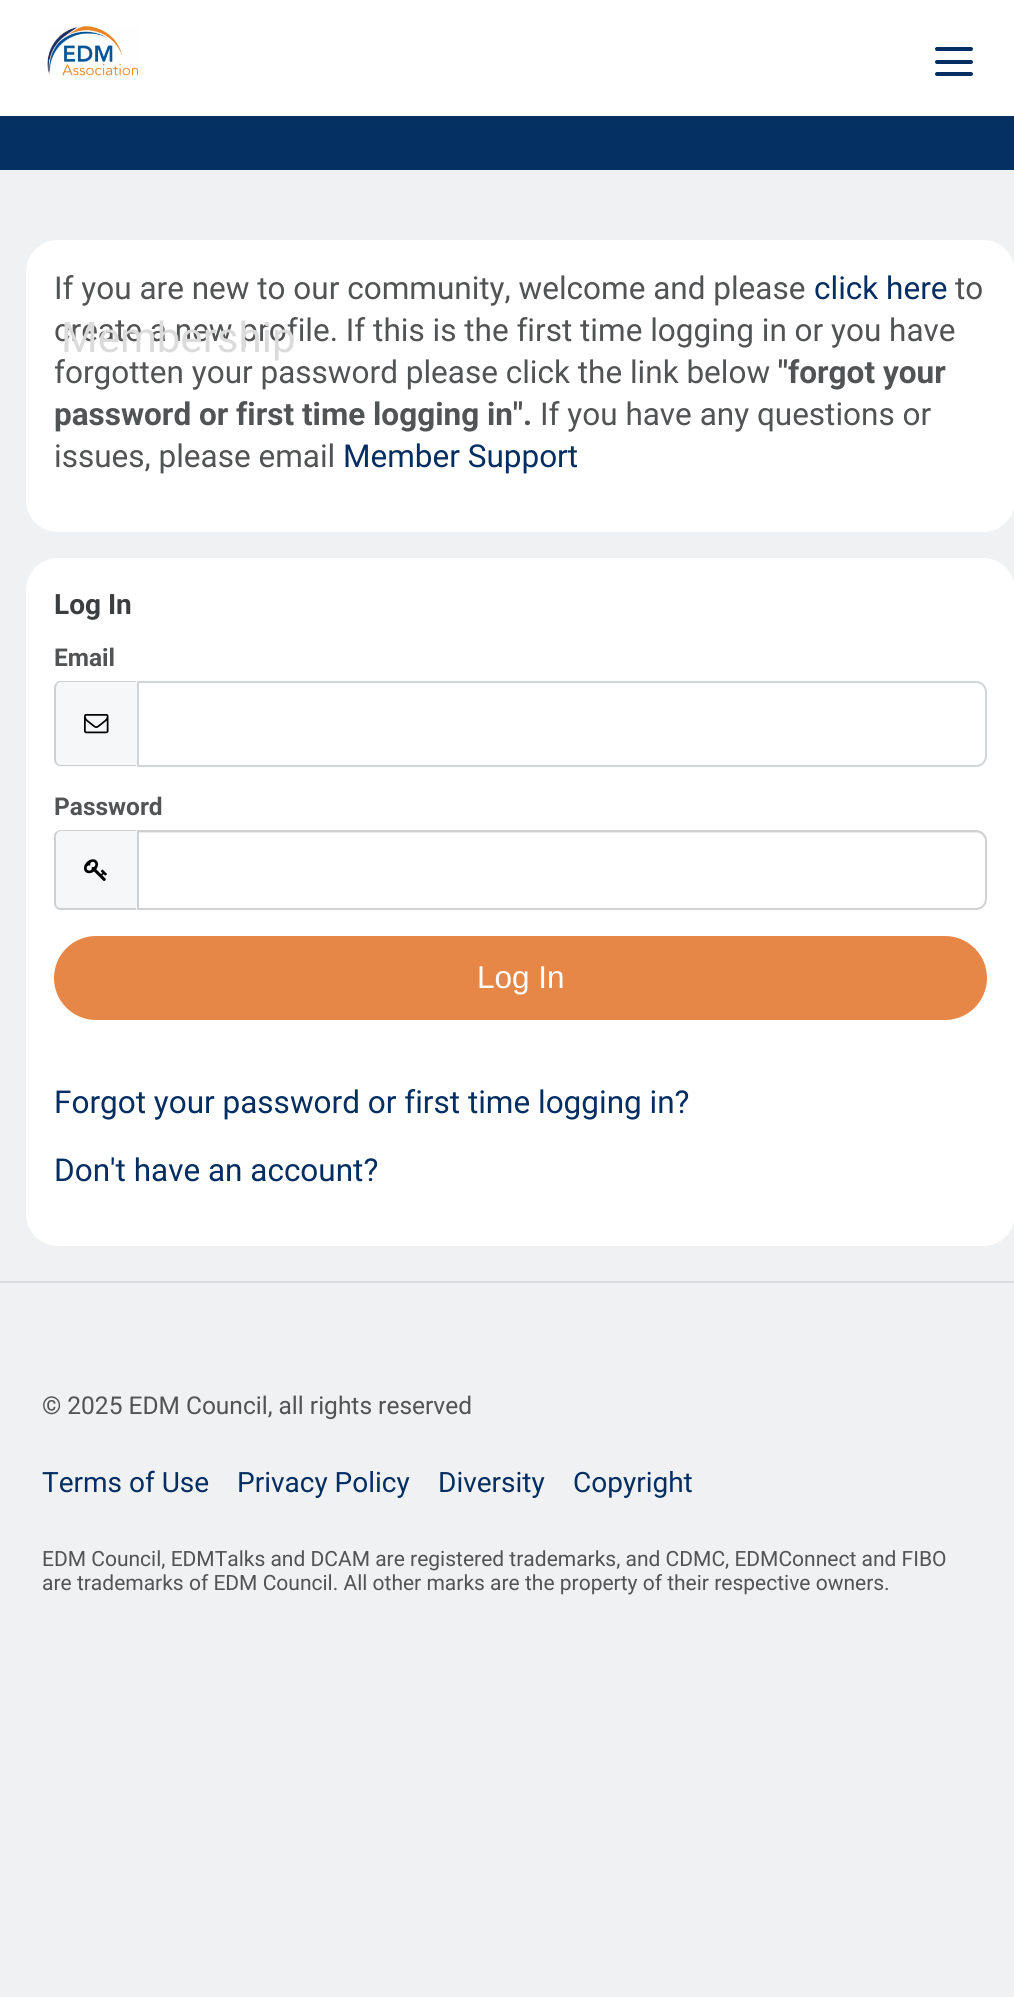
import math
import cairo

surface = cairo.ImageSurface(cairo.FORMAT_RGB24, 1014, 1997)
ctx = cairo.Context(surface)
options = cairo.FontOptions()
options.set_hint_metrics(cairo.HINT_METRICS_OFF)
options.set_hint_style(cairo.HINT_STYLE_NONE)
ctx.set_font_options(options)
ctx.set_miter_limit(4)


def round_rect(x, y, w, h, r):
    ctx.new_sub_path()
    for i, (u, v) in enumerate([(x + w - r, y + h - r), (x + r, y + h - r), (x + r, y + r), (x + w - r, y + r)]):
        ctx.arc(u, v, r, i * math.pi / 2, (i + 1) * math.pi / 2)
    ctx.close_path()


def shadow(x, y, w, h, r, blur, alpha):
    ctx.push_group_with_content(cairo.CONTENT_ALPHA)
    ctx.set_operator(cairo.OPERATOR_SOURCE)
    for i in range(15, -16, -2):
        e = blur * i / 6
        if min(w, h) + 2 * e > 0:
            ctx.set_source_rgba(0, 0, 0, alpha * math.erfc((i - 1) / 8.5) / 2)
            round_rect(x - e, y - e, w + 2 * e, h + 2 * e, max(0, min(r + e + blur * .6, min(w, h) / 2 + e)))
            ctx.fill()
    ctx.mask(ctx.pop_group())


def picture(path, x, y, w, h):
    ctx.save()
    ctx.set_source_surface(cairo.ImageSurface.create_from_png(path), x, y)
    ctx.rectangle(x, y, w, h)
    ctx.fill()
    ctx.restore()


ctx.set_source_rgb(0.941, 0.945, 0.949)
ctx.paint()
ctx.set_source_rgb(0.016, 0.188, 0.388)
ctx.rectangle(0, 116, 1014, 54)
ctx.fill()
ctx.set_source_rgb(1, 1, 1)
round_rect(27, 241, 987, 290, 31)
ctx.fill_preserve()
ctx.stroke()
ctx.select_font_face("Roboto")
ctx.set_font_size(31.5)
ctx.set_source_rgb(0.322, 0.325, 0.329)
ctx.move_to(54, 299)
ctx.show_text("If you are new to our community, welcome and please")
ctx.set_source_rgb(0.016, 0.18, 0.384)
ctx.move_to(814, 299)
ctx.show_text("click here")
ctx.set_source_rgb(0.322, 0.325, 0.329)
ctx.move_to(955, 299)
ctx.show_text("to")
ctx.move_to(54, 341)
ctx.show_text("create a new profile. If this is the first time logging in or you have")
ctx.move_to(54, 383)
ctx.show_text("forgotten your password please click the link below")
ctx.select_font_face("Roboto", cairo.FONT_SLANT_NORMAL, cairo.FONT_WEIGHT_BOLD)
ctx.move_to(778, 383)
ctx.show_text("\"forgot your")
ctx.move_to(54, 425)
ctx.show_text("password or first time logging in\".")
ctx.select_font_face("Roboto")
ctx.move_to(540, 425)
ctx.show_text("If you have any questions or")
ctx.move_to(54, 467)
ctx.show_text("issues, please email")
ctx.set_source_rgb(0.016, 0.18, 0.384)
ctx.move_to(343, 467)
ctx.show_text("Member Support")
ctx.set_source_rgb(1, 1, 1)
round_rect(27, 559, 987, 686, 31)
ctx.fill_preserve()
ctx.stroke()
ctx.select_font_face("Roboto", cairo.FONT_SLANT_NORMAL, cairo.FONT_WEIGHT_BOLD)
ctx.set_font_size(28)
ctx.set_source_rgb(0.235, 0.239, 0.243)
ctx.move_to(54, 614)
ctx.show_text("Log In")
ctx.set_font_size(24.5)
ctx.set_source_rgb(0.322, 0.325, 0.329)
ctx.move_to(54, 666)
ctx.show_text("Email")
ctx.set_source_rgb(0.961, 0.965, 0.969)
ctx.new_path()
ctx.move_to(61, 681)
ctx.line_to(137, 681)
ctx.line_to(137, 767)
ctx.line_to(61, 767)
ctx.curve_to(57, 767, 54, 764, 54, 760)
ctx.line_to(54, 688)
ctx.curve_to(54, 684, 57, 681, 61, 681)
ctx.close_path()
ctx.fill()
ctx.set_source_rgb(0.812, 0.816, 0.824)
ctx.set_fill_rule(cairo.FILL_RULE_EVEN_ODD)
ctx.new_path()
ctx.move_to(61, 681)
ctx.line_to(136, 681)
ctx.line_to(136, 766)
ctx.line_to(61, 766)
ctx.curve_to(57, 766, 54, 763, 54, 760)
ctx.line_to(54, 688)
ctx.curve_to(54, 684, 57, 681, 61, 681)
ctx.close_path()
ctx.move_to(61, 682)
ctx.line_to(136, 682)
ctx.line_to(136, 765)
ctx.line_to(61, 765)
ctx.curve_to(58, 765, 56, 762, 56, 760)
ctx.line_to(56, 688)
ctx.curve_to(56, 685, 58, 682, 61, 682)
ctx.close_path()
ctx.fill()
picture("img1.png", 84, 714, 25, 20)
ctx.new_path()
ctx.move_to(138, 682)
ctx.line_to(976, 682)
ctx.curve_to(981.5, 682, 986, 686.5, 986, 692)
ctx.line_to(986, 756)
ctx.curve_to(986, 761.5, 981.5, 766, 976, 766)
ctx.line_to(138, 766)
ctx.close_path()
ctx.set_source_rgb(0.824, 0.839, 0.855)
ctx.stroke()
ctx.set_source_rgb(0.322, 0.325, 0.329)
ctx.move_to(54, 815)
ctx.show_text("Password")
ctx.set_source_rgb(0.961, 0.965, 0.969)
ctx.new_path()
ctx.move_to(61, 830)
ctx.line_to(137, 830)
ctx.line_to(137, 910)
ctx.line_to(61, 910)
ctx.curve_to(57, 910, 54, 907, 54, 903)
ctx.line_to(54, 837)
ctx.curve_to(54, 833, 57, 830, 61, 830)
ctx.close_path()
ctx.fill()
ctx.set_source_rgb(0.812, 0.816, 0.824)
ctx.new_path()
ctx.move_to(61, 830)
ctx.line_to(136, 830)
ctx.line_to(136, 910)
ctx.line_to(61, 910)
ctx.curve_to(57, 910, 54, 907, 54, 903)
ctx.line_to(54, 836)
ctx.curve_to(54, 833, 57, 830, 61, 830)
ctx.close_path()
ctx.move_to(61, 831)
ctx.line_to(136, 831)
ctx.line_to(136, 908)
ctx.line_to(61, 908)
ctx.curve_to(58, 908, 56, 906, 56, 903)
ctx.line_to(56, 836)
ctx.curve_to(56, 834, 58, 831, 61, 831)
ctx.close_path()
ctx.fill()
picture("img2.png", 84, 859, 23, 22)
ctx.set_source_rgb(0.925, 0.925, 0.925)
ctx.set_fill_rule(cairo.FILL_RULE_WINDING)
ctx.new_path()
ctx.move_to(138, 833)
ctx.line_to(976, 833)
ctx.curve_to(981, 833, 985, 837, 985, 842)
ctx.curve_to(985, 836, 982, 831, 976, 831)
ctx.line_to(138, 831)
ctx.close_path()
ctx.fill()
ctx.new_path()
ctx.move_to(138, 831)
ctx.line_to(976, 831)
ctx.curve_to(981.5, 831, 986, 835.5, 986, 841)
ctx.line_to(986, 899)
ctx.curve_to(986, 904.5, 981.5, 909, 976, 909)
ctx.line_to(138, 909)
ctx.close_path()
ctx.set_source_rgb(0.812, 0.816, 0.824)
ctx.stroke()
ctx.set_source_rgb(0.906, 0.529, 0.278)
round_rect(55, 937, 931, 82, 41)
ctx.fill_preserve()
ctx.stroke()
ctx.select_font_face("Liberation Sans")
ctx.set_font_size(31.5)
ctx.set_source_rgb(1, 1, 1)
ctx.move_to(477, 988)
ctx.show_text("Log In")
ctx.select_font_face("Roboto")
ctx.set_source_rgb(0.016, 0.18, 0.384)
ctx.move_to(54, 1113)
ctx.show_text("Forgot your password or first time logging in?")
ctx.move_to(54, 1181)
ctx.show_text("Don't have an account?")
ctx.set_source_rgb(0.09, 0.137, 0.173)
shadow(0, 0, 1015, 116, 0, 9, 0.08)
ctx.set_source_rgb(1, 1, 1)
ctx.rectangle(0, 0, 1014, 116)
ctx.fill()
picture("img3.png", 47, 26, 92, 50)
ctx.set_source_rgb(0.016, 0.18, 0.384)
round_rect(935, 47, 38, 4, 2)
ctx.fill()
round_rect(935, 60, 38, 4, 2)
ctx.fill()
round_rect(935, 72, 38, 4, 2)
ctx.fill()
ctx.set_font_size(42)
ctx.set_source_rgb(0.859, 0.859, 0.859)
ctx.move_to(61, 352)
ctx.show_text("Membership")
ctx.set_source_rgb(0.855, 0.867, 0.878)
ctx.rectangle(0, 1281, 1014, 2)
ctx.fill()
ctx.set_font_size(24.5)
ctx.set_source_rgb(0.322, 0.325, 0.329)
ctx.move_to(42, 1414)
ctx.show_text("© 2025 EDM Council, all rights reserved")
ctx.set_font_size(28)
ctx.set_source_rgb(0.016, 0.18, 0.384)
ctx.move_to(42, 1492)
ctx.show_text("Terms of Use")
ctx.move_to(237, 1492)
ctx.show_text("Privacy Policy")
ctx.move_to(438, 1492)
ctx.show_text("Diversity")
ctx.move_to(573, 1492)
ctx.show_text("Copyright")
ctx.set_font_size(21)
ctx.set_source_rgb(0.322, 0.325, 0.329)
ctx.move_to(42, 1566)
ctx.show_text("EDM Council, EDMTalks and DCAM are registered trademarks, and CDMC, EDMConnect and FIBO")
ctx.move_to(42, 1590)
ctx.show_text("are trademarks of EDM Council. All other marks are the property of their respective owners.")
surface.write_to_png("page.png")
